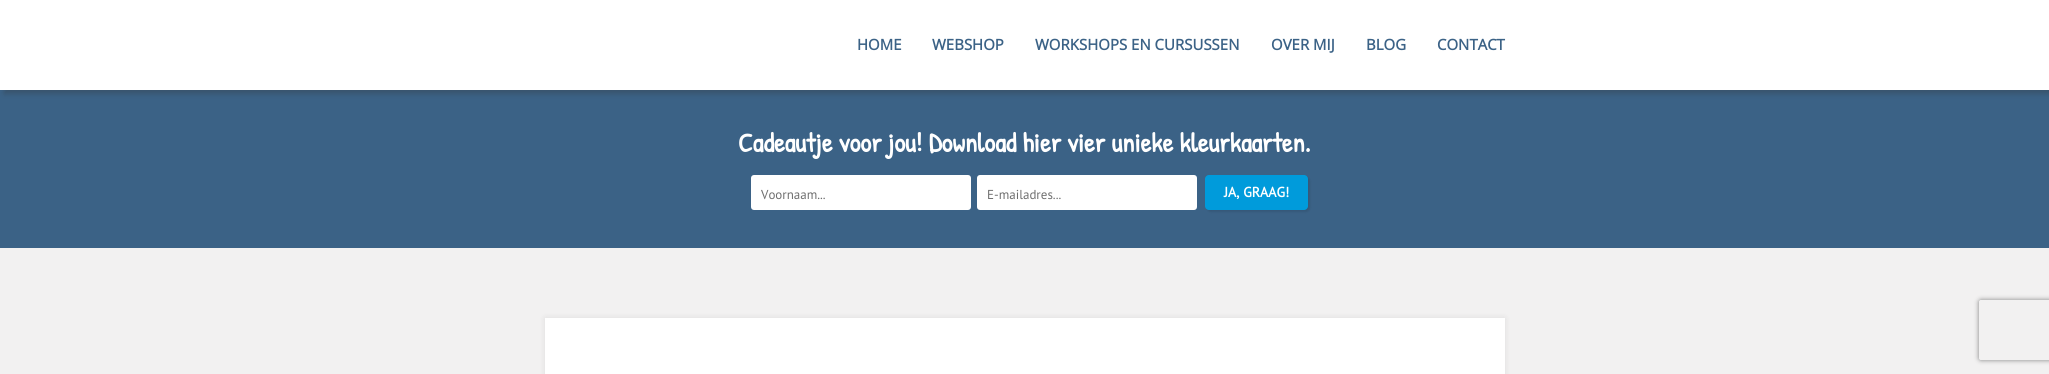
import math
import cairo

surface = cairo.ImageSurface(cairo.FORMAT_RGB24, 2049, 374)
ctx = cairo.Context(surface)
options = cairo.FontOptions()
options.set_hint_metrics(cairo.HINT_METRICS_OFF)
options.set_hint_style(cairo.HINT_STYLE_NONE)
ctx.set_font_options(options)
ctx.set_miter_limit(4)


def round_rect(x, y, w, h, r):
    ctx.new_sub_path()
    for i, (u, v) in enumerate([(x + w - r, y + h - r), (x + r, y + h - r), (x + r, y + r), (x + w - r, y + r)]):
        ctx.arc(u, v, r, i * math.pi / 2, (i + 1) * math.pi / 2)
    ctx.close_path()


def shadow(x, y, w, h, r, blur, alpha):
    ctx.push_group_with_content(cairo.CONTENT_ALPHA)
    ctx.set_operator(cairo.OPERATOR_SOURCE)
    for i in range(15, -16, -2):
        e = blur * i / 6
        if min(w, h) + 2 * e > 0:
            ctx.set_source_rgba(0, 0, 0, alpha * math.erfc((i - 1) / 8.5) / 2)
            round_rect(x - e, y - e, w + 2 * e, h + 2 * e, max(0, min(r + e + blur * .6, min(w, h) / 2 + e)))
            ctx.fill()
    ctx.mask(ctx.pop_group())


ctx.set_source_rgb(0.949, 0.945, 0.945)
ctx.paint()
ctx.set_source_rgb(0.231, 0.384, 0.525)
ctx.rectangle(0, 90, 2049, 158)
ctx.fill()
ctx.set_source_rgb(0.196, 0.196, 0.196)
shadow(4, 4, 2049, 90, 0, 2.5, 0.3)
ctx.set_source_rgb(1, 1, 1)
ctx.rectangle(0, 0, 2049, 90)
ctx.fill()
ctx.select_font_face("Open Sans", cairo.FONT_SLANT_NORMAL, cairo.FONT_WEIGHT_BOLD)
ctx.set_font_size(15)
ctx.set_source_rgb(0.231, 0.384, 0.525)
ctx.move_to(857, 50)
ctx.show_text("HOME")
ctx.move_to(932, 50)
ctx.show_text("WEBSHOP")
ctx.move_to(1035, 50)
ctx.show_text("WORKSHOPS EN CURSUSSEN")
ctx.move_to(1271, 50)
ctx.show_text("OVER MIJ")
ctx.move_to(1366, 50)
ctx.show_text("BLOG")
ctx.move_to(1437, 50)
ctx.show_text("CONTACT")
ctx.select_font_face("Patrick Hand", cairo.FONT_SLANT_NORMAL, cairo.FONT_WEIGHT_BOLD)
ctx.set_font_size(27)
ctx.set_source_rgb(1, 1, 1)
ctx.move_to(738, 152)
ctx.show_text("Cadeautje voor jou! Download hier vier unieke kleurkaarten.")
round_rect(751, 175, 220, 35, 3)
ctx.fill()
ctx.select_font_face("PT Sans")
ctx.set_font_size(13)
ctx.set_source_rgb(0.431, 0.431, 0.431)
ctx.move_to(761, 199)
ctx.show_text("Voornaam...")
ctx.set_source_rgb(1, 1, 1)
round_rect(977, 175, 220, 35, 3)
ctx.fill()
ctx.set_source_rgb(0.431, 0.431, 0.431)
ctx.move_to(987, 199)
ctx.show_text("E-mailadres...")
ctx.set_source_rgb(0, 0, 0)
shadow(1207, 177, 103, 35, 4, 1, 0.1)
ctx.set_source_rgb(0, 0.608, 0.859)
round_rect(1205, 175, 103, 35, 4)
ctx.fill()
ctx.select_font_face("PT Sans", cairo.FONT_SLANT_NORMAL, cairo.FONT_WEIGHT_BOLD)
ctx.set_font_size(14)
ctx.set_source_rgb(1, 1, 1)
ctx.move_to(1224, 197)
ctx.show_text("JA, GRAAG!")
ctx.set_source_rgb(0, 0, 0)
shadow(545, 318, 960, 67, 0, 3.5, 0.08)
ctx.set_source_rgb(1, 1, 1)
ctx.rectangle(545, 318, 960, 56)
ctx.fill()
ctx.save()
ctx.set_fill_rule(cairo.FILL_RULE_EVEN_ODD)
ctx.new_path()
ctx.move_to(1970, 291)
ctx.line_to(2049, 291)
ctx.line_to(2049, 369)
ctx.line_to(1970, 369)
ctx.close_path()
ctx.move_to(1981, 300)
ctx.line_to(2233, 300)
ctx.curve_to(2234, 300, 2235, 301, 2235, 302)
ctx.line_to(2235, 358)
ctx.curve_to(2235, 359, 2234, 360, 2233, 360)
ctx.line_to(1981, 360)
ctx.curve_to(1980, 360, 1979, 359, 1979, 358)
ctx.line_to(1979, 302)
ctx.curve_to(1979, 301, 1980, 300, 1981, 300)
ctx.close_path()
ctx.clip()
ctx.set_source_rgb(0.502, 0.502, 0.502)
shadow(1979, 300, 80, 60, 2, 2.5, 1)
ctx.restore()
surface.write_to_png("page.png")
